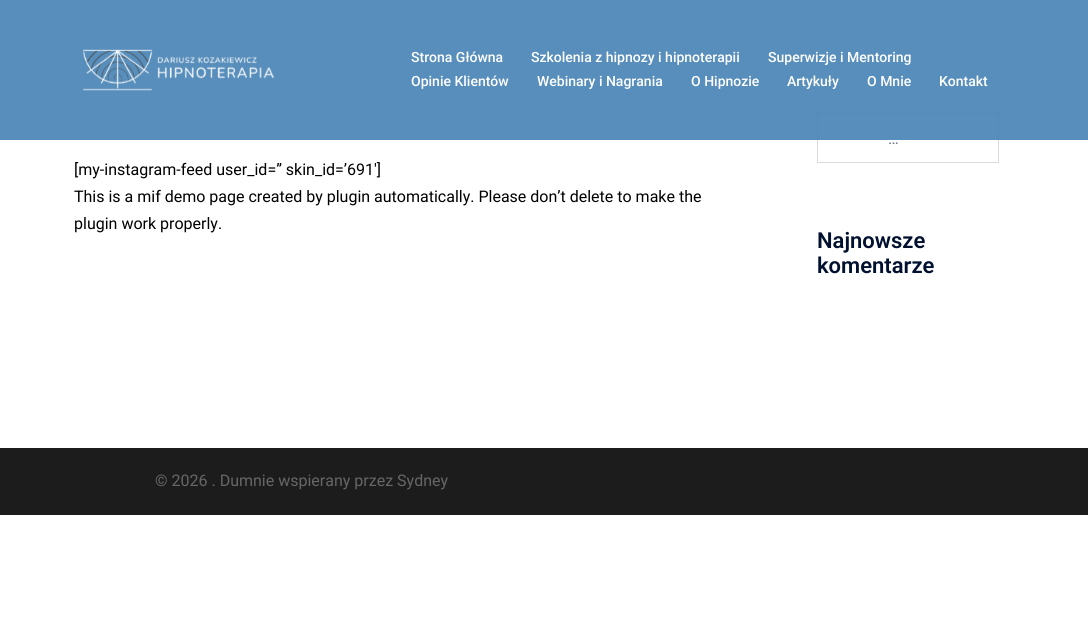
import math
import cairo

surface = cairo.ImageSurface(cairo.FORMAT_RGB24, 1088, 619)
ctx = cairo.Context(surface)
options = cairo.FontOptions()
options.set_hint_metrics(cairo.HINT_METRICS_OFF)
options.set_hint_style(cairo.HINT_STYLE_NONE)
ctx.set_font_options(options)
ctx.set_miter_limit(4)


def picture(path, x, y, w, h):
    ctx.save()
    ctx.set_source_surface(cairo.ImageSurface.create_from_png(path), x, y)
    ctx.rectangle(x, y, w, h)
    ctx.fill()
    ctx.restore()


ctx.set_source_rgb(1, 1, 1)
ctx.paint()
ctx.rectangle(817.5, 113.5, 181, 49)
ctx.set_source_rgb(0.859, 0.859, 0.859)
ctx.set_line_width(1)
ctx.stroke()
ctx.set_source_rgba(0.275, 0.51, 0.706, 0.9)
ctx.rectangle(0, 0, 1088, 140)
ctx.fill()
picture("img1.png", 83, 49, 191, 42)
ctx.select_font_face("Roboto Medium")
ctx.set_font_size(14)
ctx.set_source_rgb(1, 1, 1)
ctx.move_to(411, 62)
ctx.show_text("Strona Główna")
ctx.move_to(531, 62)
ctx.show_text("Szkolenia z hipnozy i hipnoterapii")
ctx.move_to(768, 62)
ctx.show_text("Superwizje i Mentoring")
ctx.move_to(411, 86)
ctx.show_text("Opinie Klientów")
ctx.move_to(537, 86)
ctx.show_text("Webinary i Nagrania")
ctx.move_to(691, 86)
ctx.show_text("O Hipnozie")
ctx.move_to(787, 86)
ctx.show_text("Artykuły")
ctx.move_to(867, 86)
ctx.show_text("O Mnie")
ctx.move_to(939, 86)
ctx.show_text("Kontakt")
ctx.select_font_face("Roboto")
ctx.set_font_size(16)
ctx.set_source_rgb(0, 0, 0)
ctx.move_to(74, 175)
ctx.show_text("[my-instagram-feed user_id=” skin_id=’691′]")
ctx.move_to(74, 202)
ctx.show_text("This is a mif demo page created by plugin automatically. Please don’t delete to make the")
ctx.move_to(74, 229)
ctx.show_text("plugin work properly.")
ctx.set_source_rgb(0.427, 0.463, 0.522)
ctx.move_to(888, 144)
ctx.show_text("…")
ctx.select_font_face("Roboto SemiBold")
ctx.set_font_size(22)
ctx.set_source_rgb(0, 0.063, 0.18)
ctx.move_to(817, 248)
ctx.show_text("Najnowsze")
ctx.move_to(817, 273)
ctx.show_text("komentarze")
ctx.set_source_rgb(0.11, 0.11, 0.11)
ctx.rectangle(0, 448, 1088, 67)
ctx.fill()
ctx.select_font_face("Roboto")
ctx.set_font_size(16)
ctx.set_source_rgb(0.4, 0.4, 0.4)
ctx.move_to(155, 486)
ctx.show_text("© 2026 . Dumnie wspierany przez Sydney")
surface.write_to_png("page.png")
